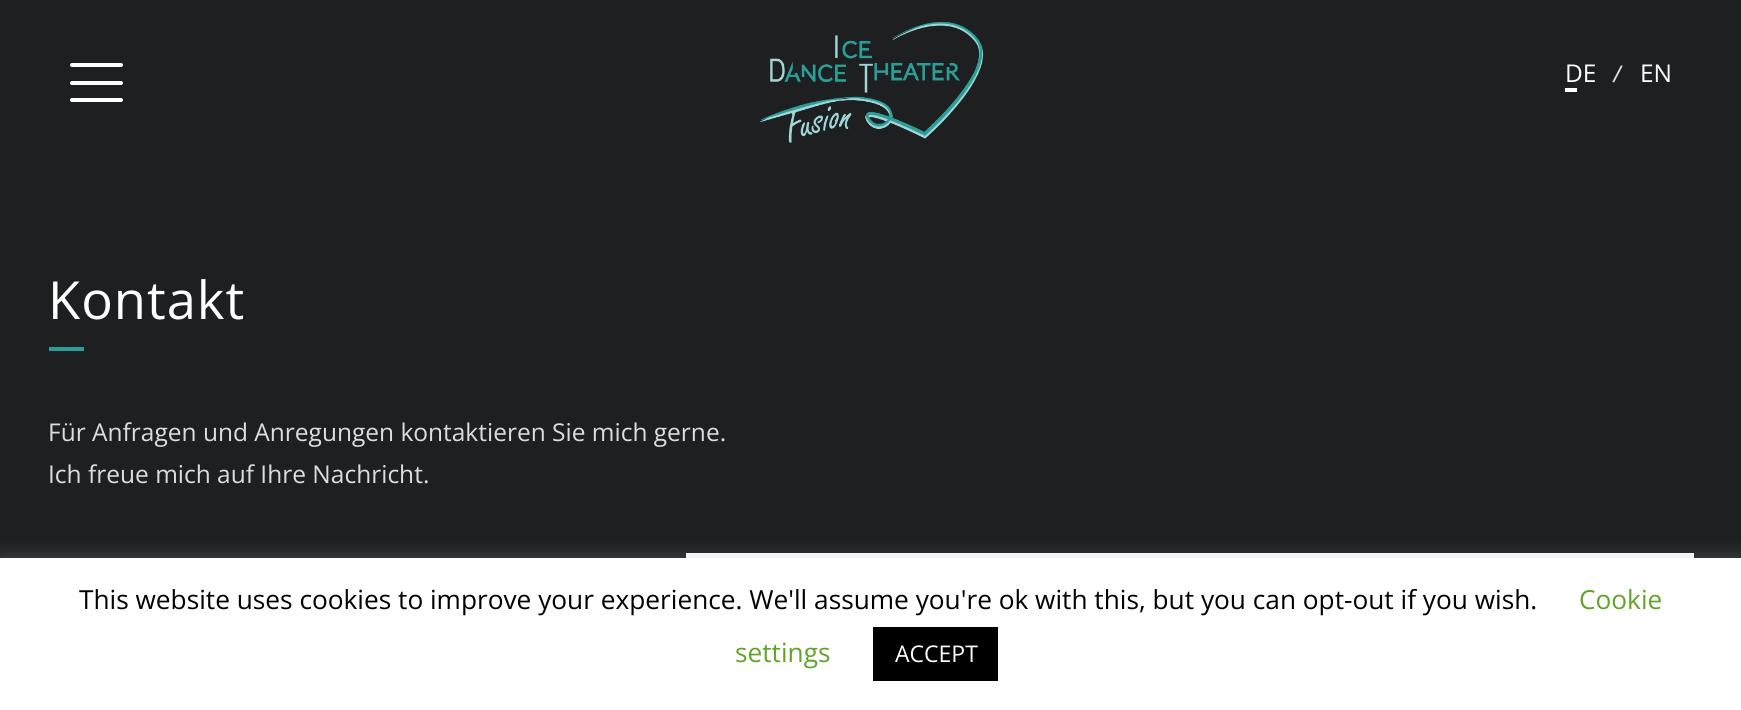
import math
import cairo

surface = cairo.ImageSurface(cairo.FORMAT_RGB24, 1741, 710)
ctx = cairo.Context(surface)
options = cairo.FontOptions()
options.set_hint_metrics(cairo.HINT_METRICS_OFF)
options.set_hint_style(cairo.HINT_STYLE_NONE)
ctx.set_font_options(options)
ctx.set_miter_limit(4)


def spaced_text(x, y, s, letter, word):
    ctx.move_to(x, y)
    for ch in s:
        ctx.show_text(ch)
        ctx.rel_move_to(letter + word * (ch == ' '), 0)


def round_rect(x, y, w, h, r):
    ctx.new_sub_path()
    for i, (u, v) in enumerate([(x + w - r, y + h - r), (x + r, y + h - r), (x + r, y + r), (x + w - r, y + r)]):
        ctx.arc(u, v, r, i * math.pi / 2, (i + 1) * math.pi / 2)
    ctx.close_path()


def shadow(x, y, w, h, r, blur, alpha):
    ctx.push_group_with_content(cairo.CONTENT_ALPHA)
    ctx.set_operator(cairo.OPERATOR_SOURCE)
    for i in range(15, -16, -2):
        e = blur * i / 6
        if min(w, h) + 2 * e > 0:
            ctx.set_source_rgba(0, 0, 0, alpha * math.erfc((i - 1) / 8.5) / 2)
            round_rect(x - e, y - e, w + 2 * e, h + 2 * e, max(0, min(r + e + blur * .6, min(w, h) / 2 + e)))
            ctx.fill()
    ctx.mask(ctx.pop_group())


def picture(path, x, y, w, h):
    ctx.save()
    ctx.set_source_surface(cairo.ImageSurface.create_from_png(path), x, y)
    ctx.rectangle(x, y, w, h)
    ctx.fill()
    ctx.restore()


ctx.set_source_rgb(0.114, 0.122, 0.129)
ctx.paint()
ctx.set_source_rgb(1, 1, 1)
round_rect(70, 81, 53, 4, 2)
ctx.fill()
round_rect(70, 63, 53, 4, 2)
ctx.fill()
round_rect(70, 98, 53, 4, 2)
ctx.fill()
picture("img1.png", 760, 21, 224, 122)
ctx.select_font_face("Open Sans")
ctx.set_font_size(24.5)
ctx.move_to(1565, 82)
ctx.show_text("DE")
ctx.rectangle(1565, 88, 12, 4)
ctx.fill()
ctx.set_source_rgb(0.867, 0.867, 0.867)
ctx.save()
ctx.translate(1612, 82)
ctx.rotate(7 * math.pi / 180)
ctx.move_to(0, 0)
ctx.show_text("/")
ctx.restore()
ctx.set_source_rgb(1, 1, 1)
ctx.move_to(1640, 82)
ctx.show_text("EN")
ctx.set_font_size(52.5)
spaced_text(48, 319, "Kontakt", 1, 0)
ctx.set_source_rgb(0.173, 0.62, 0.596)
ctx.rectangle(49, 347, 35, 4)
ctx.fill()
ctx.set_font_size(24.5)
ctx.set_source_rgb(0.867, 0.867, 0.867)
ctx.move_to(48, 441)
ctx.show_text("Für Anfragen und Anregungen kontaktieren Sie mich gerne.")
ctx.move_to(48, 483)
ctx.show_text("Ich freue mich auf Ihre Nachricht.")
picture("img2.png", 686, 553, 1008, 5)
ctx.set_source_rgb(0.675, 0.671, 0.671)
shadow(0, 557, 1741, 152, 0, 9, 0.3)
ctx.set_source_rgb(1, 1, 1)
ctx.rectangle(0, 558, 1741, 152)
ctx.fill()
ctx.set_font_size(26.25)
ctx.set_source_rgb(0, 0, 0)
ctx.move_to(79, 609)
ctx.show_text("This website uses cookies to improve your experience. We'll assume you're ok with this, but you can opt-out if you wish.")
ctx.set_source_rgb(0.384, 0.639, 0.161)
ctx.move_to(1579, 609)
ctx.show_text("Cookie")
ctx.move_to(735, 662)
ctx.show_text("settings")
ctx.set_source_rgb(0, 0, 0)
ctx.rectangle(873, 627, 125, 54)
ctx.fill()
ctx.set_font_size(23)
ctx.set_source_rgb(1, 1, 1)
ctx.move_to(895, 662)
ctx.show_text("ACCEPT")
surface.write_to_png("page.png")
